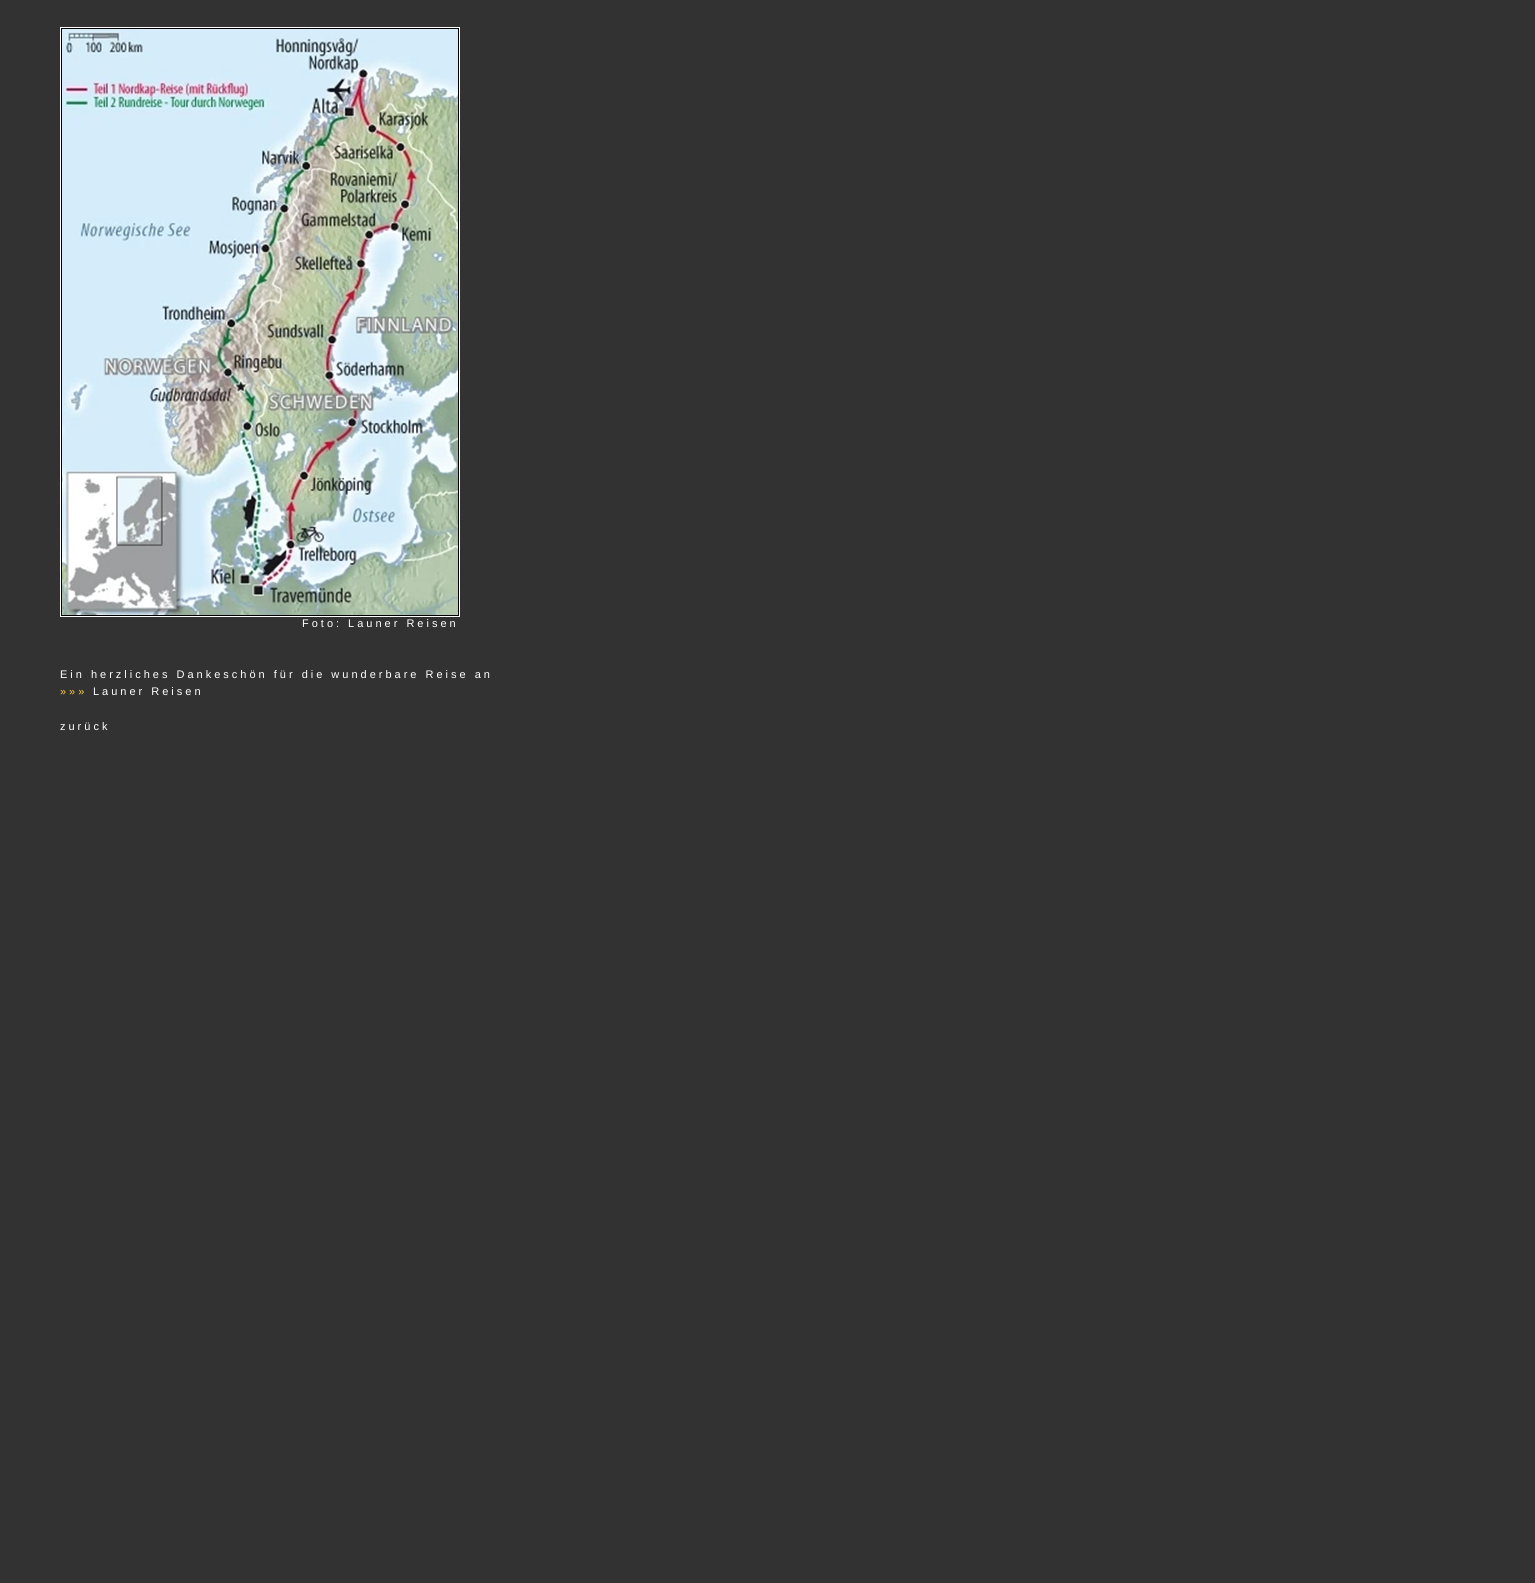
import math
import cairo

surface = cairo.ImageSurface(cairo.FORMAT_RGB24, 1535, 1583)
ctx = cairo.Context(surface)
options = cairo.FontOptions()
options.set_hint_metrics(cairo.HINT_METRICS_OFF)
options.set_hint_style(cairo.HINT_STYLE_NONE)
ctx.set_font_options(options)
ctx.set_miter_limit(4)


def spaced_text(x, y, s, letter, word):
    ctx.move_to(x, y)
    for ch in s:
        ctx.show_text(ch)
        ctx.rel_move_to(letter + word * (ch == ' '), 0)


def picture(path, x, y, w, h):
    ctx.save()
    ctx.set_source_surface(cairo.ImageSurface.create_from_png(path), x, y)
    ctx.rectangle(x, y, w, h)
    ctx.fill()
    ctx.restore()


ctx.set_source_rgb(0.196, 0.196, 0.196)
ctx.paint()
picture("img1.png", 60, 27, 400, 590)
ctx.select_font_face("Liberation Sans")
ctx.set_font_size(11)
ctx.set_source_rgb(1, 1, 1)
spaced_text(302, 627, "Foto: Launer Reisen", 3, 0)
spaced_text(60, 678, "Ein herzliches Dankeschön für die wunderbare Reise an", 3, 0)
ctx.set_source_rgb(1, 0.8, 0.2)
spaced_text(60, 695, "»»»", 3, 0)
ctx.set_source_rgb(1, 1, 1)
spaced_text(93, 695, "Launer Reisen", 3, 0)
spaced_text(60, 730, "zurück", 3, 0)
surface.write_to_png("page.png")
